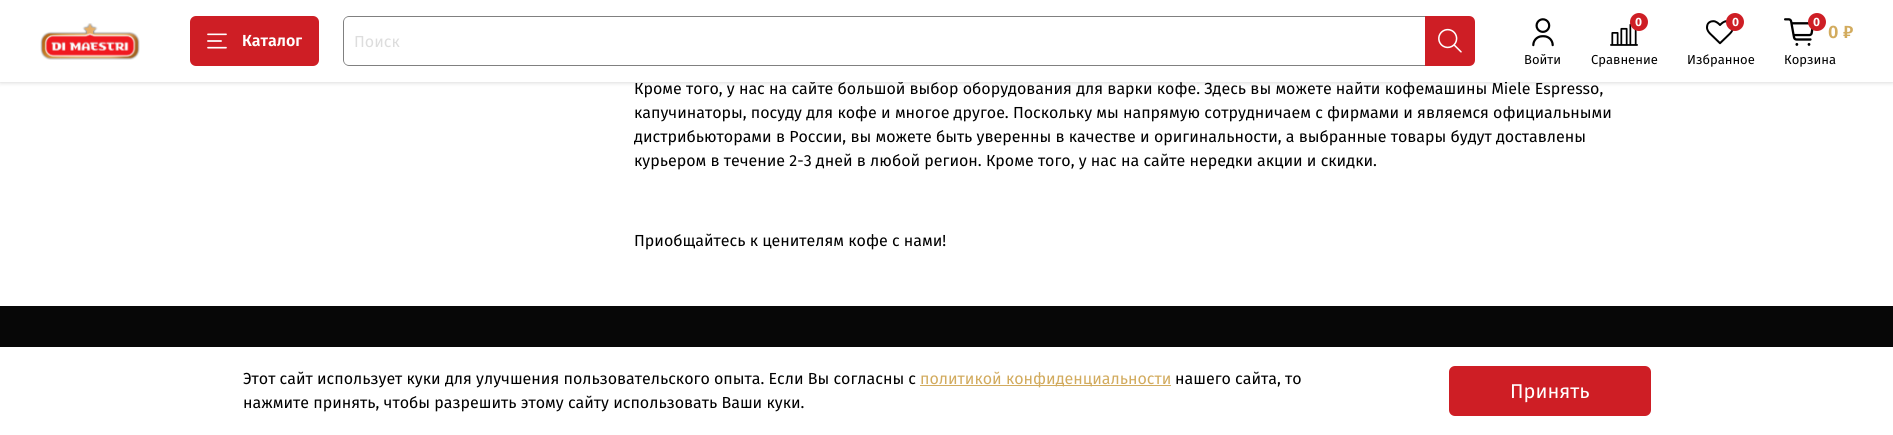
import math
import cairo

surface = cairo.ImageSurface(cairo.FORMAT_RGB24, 1893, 435)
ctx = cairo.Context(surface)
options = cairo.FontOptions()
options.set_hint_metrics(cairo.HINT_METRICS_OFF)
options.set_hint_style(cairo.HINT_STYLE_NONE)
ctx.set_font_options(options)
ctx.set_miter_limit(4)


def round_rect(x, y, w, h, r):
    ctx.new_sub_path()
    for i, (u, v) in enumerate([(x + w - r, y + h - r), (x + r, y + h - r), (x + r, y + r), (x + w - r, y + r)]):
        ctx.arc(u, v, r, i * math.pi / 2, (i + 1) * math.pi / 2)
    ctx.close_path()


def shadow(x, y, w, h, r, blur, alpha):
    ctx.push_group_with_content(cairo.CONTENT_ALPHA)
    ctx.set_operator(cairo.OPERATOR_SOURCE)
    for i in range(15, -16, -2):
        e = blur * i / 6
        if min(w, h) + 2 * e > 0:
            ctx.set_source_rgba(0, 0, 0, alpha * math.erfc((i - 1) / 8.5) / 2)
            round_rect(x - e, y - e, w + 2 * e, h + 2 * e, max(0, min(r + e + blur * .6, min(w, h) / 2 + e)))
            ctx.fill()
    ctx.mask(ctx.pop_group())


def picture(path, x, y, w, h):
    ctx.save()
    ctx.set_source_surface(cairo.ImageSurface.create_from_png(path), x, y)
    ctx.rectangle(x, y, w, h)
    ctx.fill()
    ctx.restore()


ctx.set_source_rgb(1, 1, 1)
ctx.paint()
ctx.set_source_rgb(0, 0, 0)
shadow(0, 0, 1893, 82, 0, 2.5, 0.2)
ctx.select_font_face("Fira Sans")
ctx.set_font_size(16)
ctx.set_source_rgb(0, 0, 0)
ctx.move_to(634, 94)
ctx.show_text("Кроме того, у нас на сайте большой выбор оборудования для варки кофе. Здесь вы можете найти кофемашины Miele Espresso,")
ctx.set_source_rgb(1, 1, 1)
ctx.rectangle(0, 0, 1893, 82)
ctx.fill()
picture("img1.png", 40, 23, 100, 37)
ctx.set_source_rgb(0.808, 0.118, 0.145)
round_rect(190, 16, 129, 50, 6)
ctx.fill()
picture("img2.png", 207, 33, 20, 16)
ctx.select_font_face("Fira Sans SemiBold")
ctx.set_source_rgb(1, 1, 1)
ctx.move_to(242, 46)
ctx.show_text("Каталог")
ctx.set_source_rgb(0.502, 0.502, 0.502)
ctx.set_fill_rule(cairo.FILL_RULE_EVEN_ODD)
ctx.new_path()
ctx.move_to(349, 16)
ctx.line_to(1425, 16)
ctx.line_to(1425, 66)
ctx.line_to(349, 66)
ctx.curve_to(346, 66, 343, 63, 343, 60)
ctx.line_to(343, 22)
ctx.curve_to(343, 19, 346, 16, 349, 16)
ctx.close_path()
ctx.move_to(349, 17)
ctx.line_to(1425, 17)
ctx.line_to(1425, 65)
ctx.line_to(349, 65)
ctx.curve_to(346, 65, 344, 63, 344, 60)
ctx.line_to(344, 22)
ctx.curve_to(344, 19, 346, 17, 349, 17)
ctx.close_path()
ctx.fill()
ctx.select_font_face("Fira Sans")
ctx.set_source_rgb(0.867, 0.867, 0.867)
ctx.move_to(354, 47)
ctx.show_text("Поиск")
ctx.set_source_rgb(0.808, 0.118, 0.145)
ctx.new_path()
ctx.move_to(1425, 16)
ctx.line_to(1469, 16)
ctx.curve_to(1472.5, 16, 1475, 18.5, 1475, 22)
ctx.line_to(1475, 60)
ctx.curve_to(1475, 63.5, 1472.5, 66, 1469, 66)
ctx.line_to(1425, 66)
ctx.close_path()
ctx.fill()
picture("img3.png", 1438, 28, 24, 25)
picture("img4.png", 1532, 18, 22, 29)
ctx.set_font_size(13)
ctx.set_source_rgb(0, 0, 0)
ctx.move_to(1524, 64)
ctx.show_text("Войти")
picture("img5.png", 1610, 23, 28, 23)
ctx.set_source_rgb(0.808, 0.118, 0.145)
ctx.arc(1639, 22, 9, 0, 2 * math.pi)
ctx.fill()
ctx.select_font_face("Fira Sans", cairo.FONT_SLANT_NORMAL, cairo.FONT_WEIGHT_BOLD)
ctx.set_font_size(12)
ctx.set_source_rgb(1, 1, 1)
ctx.move_to(1635, 26)
ctx.show_text("0")
ctx.select_font_face("Fira Sans")
ctx.set_font_size(13)
ctx.set_source_rgb(0, 0, 0)
ctx.move_to(1591, 64)
ctx.show_text("Сравнение")
picture("img6.png", 1706, 20, 28, 25)
ctx.set_source_rgb(0.808, 0.118, 0.145)
ctx.arc(1735, 22, 9, 0, 2 * math.pi)
ctx.fill()
ctx.select_font_face("Fira Sans", cairo.FONT_SLANT_NORMAL, cairo.FONT_WEIGHT_BOLD)
ctx.set_font_size(12)
ctx.set_source_rgb(1, 1, 1)
ctx.move_to(1732, 26)
ctx.show_text("0")
ctx.select_font_face("Fira Sans")
ctx.set_font_size(13)
ctx.set_source_rgb(0, 0, 0)
ctx.move_to(1687, 64)
ctx.show_text("Избранное")
picture("img7.png", 1784, 18, 30, 28)
ctx.set_source_rgb(0.808, 0.118, 0.145)
ctx.arc(1817, 22, 9, 0, 2 * math.pi)
ctx.fill()
ctx.select_font_face("Fira Sans", cairo.FONT_SLANT_NORMAL, cairo.FONT_WEIGHT_BOLD)
ctx.set_font_size(12)
ctx.set_source_rgb(1, 1, 1)
ctx.move_to(1813, 26)
ctx.show_text("0")
ctx.select_font_face("Fira Sans SemiBold")
ctx.set_font_size(18)
ctx.set_source_rgb(0.824, 0.671, 0.369)
ctx.move_to(1828, 38)
ctx.show_text("0 ₽")
ctx.select_font_face("Fira Sans")
ctx.set_font_size(13)
ctx.set_source_rgb(0, 0, 0)
ctx.move_to(1784, 64)
ctx.show_text("Корзина")
ctx.set_font_size(16)
ctx.move_to(634, 118)
ctx.show_text("капучинаторы, посуду для кофе и многое другое. Поскольку мы напрямую сотрудничаем с фирмами и являемся официальными")
ctx.move_to(634, 142)
ctx.show_text("дистрибьюторами в России, вы можете быть уверенны в качестве и оригинальности, а выбранные товары будут доставлены")
ctx.move_to(634, 166)
ctx.show_text("курьером в течение 2-3 дней в любой регион. Кроме того, у нас на сайте нередки акции и скидки.")
ctx.move_to(634, 246)
ctx.show_text("Приобщайтесь к ценителям кофе с нами!")
ctx.set_source_rgb(0.031, 0.031, 0.031)
ctx.rectangle(0, 306, 1893, 41)
ctx.fill()
ctx.set_source_rgb(0, 0, 0)
ctx.move_to(243, 384)
ctx.show_text("Этот сайт использует куки для улучшения пользовательского опыта. Если Вы согласны с")
ctx.set_source_rgb(0.824, 0.671, 0.369)
ctx.rectangle(920, 385, 251, 1)
ctx.fill()
ctx.move_to(920, 384)
ctx.show_text("политикой конфиденциальности")
ctx.set_source_rgb(0, 0, 0)
ctx.move_to(1175, 384)
ctx.show_text("нашего сайта, то")
ctx.move_to(243, 408)
ctx.show_text("нажмите принять, чтобы разрешить этому сайту использовать Ваши куки.")
ctx.set_source_rgb(0.808, 0.118, 0.145)
round_rect(1449, 366, 202, 50, 6)
ctx.fill()
ctx.set_font_size(20)
ctx.set_source_rgb(1, 1, 1)
ctx.move_to(1510, 398)
ctx.show_text("Принять")
surface.write_to_png("page.png")
